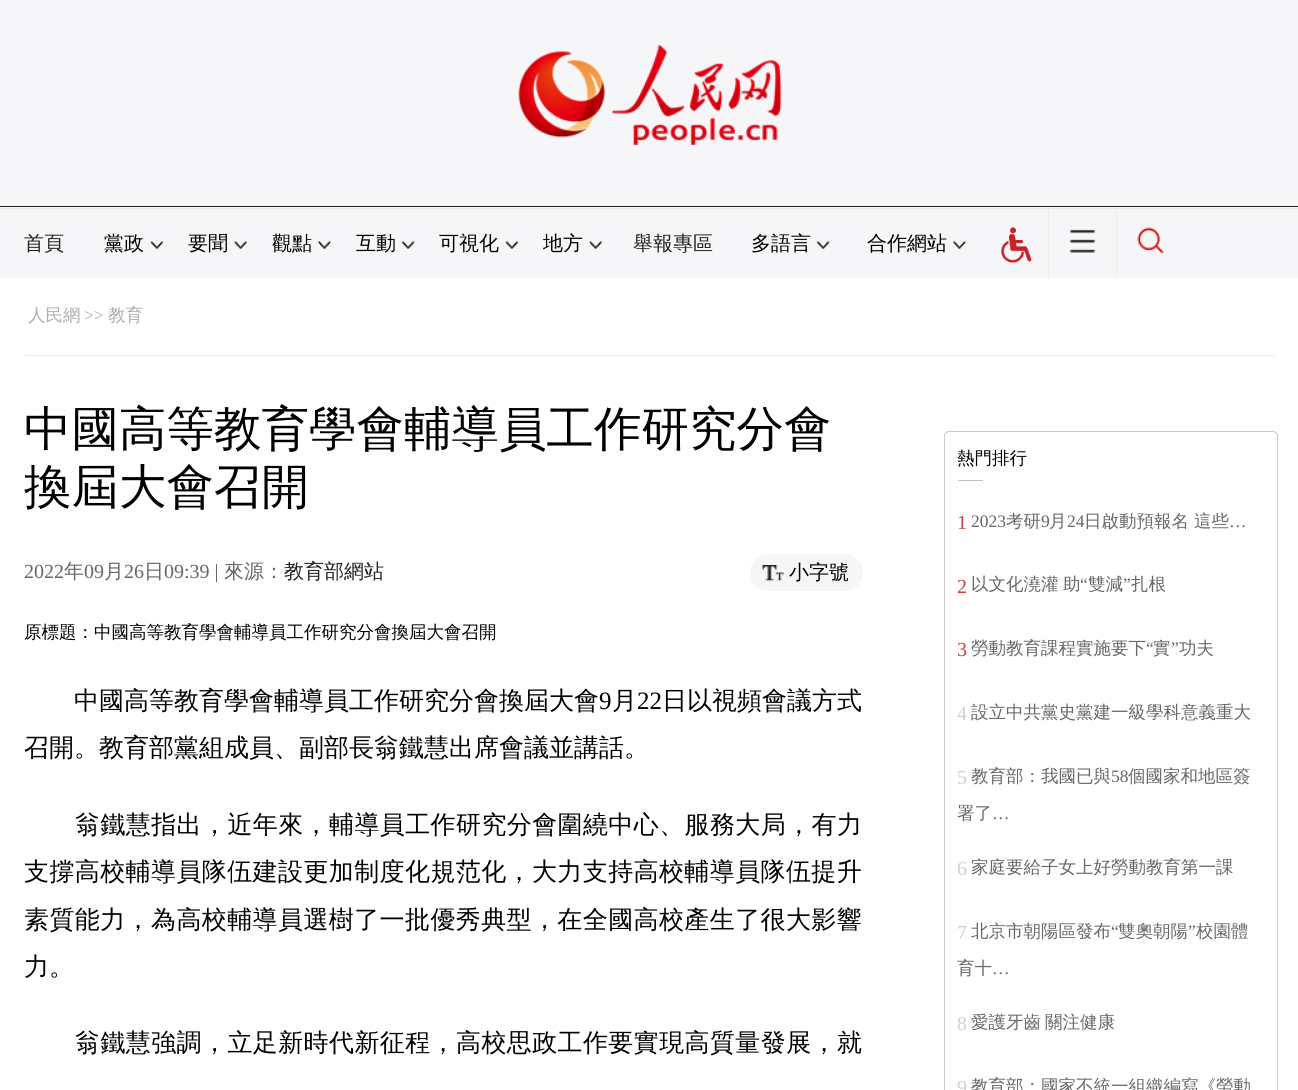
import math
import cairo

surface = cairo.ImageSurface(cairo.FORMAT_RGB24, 1298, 1090)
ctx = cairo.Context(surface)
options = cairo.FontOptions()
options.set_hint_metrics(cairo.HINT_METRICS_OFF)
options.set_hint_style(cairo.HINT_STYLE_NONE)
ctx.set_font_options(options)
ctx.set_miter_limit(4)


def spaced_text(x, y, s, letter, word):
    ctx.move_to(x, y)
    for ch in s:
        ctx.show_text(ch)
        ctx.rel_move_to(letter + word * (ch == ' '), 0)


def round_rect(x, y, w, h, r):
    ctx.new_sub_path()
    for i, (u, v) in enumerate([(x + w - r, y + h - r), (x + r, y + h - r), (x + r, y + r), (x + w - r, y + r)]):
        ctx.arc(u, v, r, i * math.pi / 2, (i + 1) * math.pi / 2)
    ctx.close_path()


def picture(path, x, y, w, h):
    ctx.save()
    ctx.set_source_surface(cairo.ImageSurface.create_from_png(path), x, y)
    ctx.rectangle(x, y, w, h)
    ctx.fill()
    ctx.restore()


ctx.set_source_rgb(1, 1, 1)
ctx.paint()
ctx.set_source_rgb(0.961, 0.961, 0.969)
ctx.rectangle(0, 0, 1298, 208)
ctx.fill()
ctx.set_source_rgb(0.129, 0.129, 0.129)
ctx.rectangle(0, 206, 1298, 1)
ctx.fill()
picture("img1.png", 518, 45, 264, 100)
ctx.set_source_rgb(0.914, 0.914, 0.914)
ctx.rectangle(0, 208, 1298, 1)
ctx.fill()
ctx.set_source_rgb(0.961, 0.961, 0.969)
ctx.rectangle(0, 209, 1298, 69)
ctx.fill()
ctx.select_font_face("WenQuanYi Zen Hei Medium")
ctx.set_font_size(20)
ctx.set_source_rgb(0.129, 0.129, 0.129)
ctx.move_to(24, 250)
ctx.show_text("首頁")
ctx.set_source_rgb(0, 0, 0)
ctx.move_to(104, 250)
ctx.show_text("黨政")
picture("img2.png", 150, 241, 14, 8)
ctx.move_to(188, 250)
ctx.show_text("要聞")
picture("img3.png", 233, 241, 15, 8)
ctx.move_to(272, 250)
ctx.show_text("觀點")
picture("img4.png", 317, 241, 15, 8)
ctx.move_to(356, 250)
ctx.show_text("互動")
picture("img5.png", 401, 241, 14, 8)
ctx.move_to(439, 250)
ctx.show_text("可視化")
picture("img6.png", 505, 241, 14, 8)
ctx.move_to(543, 250)
ctx.show_text("地方")
picture("img3.png", 588, 241, 15, 8)
ctx.set_source_rgb(0.129, 0.129, 0.129)
ctx.move_to(633, 250)
ctx.show_text("舉報專區")
ctx.set_source_rgb(0, 0, 0)
ctx.move_to(751, 250)
ctx.show_text("多語言")
picture("img5.png", 816, 241, 14, 8)
ctx.move_to(867, 250)
ctx.show_text("合作網站")
picture("img7.png", 952, 241, 15, 8)
picture("img8.png", 1001, 227, 31, 36)
ctx.set_source_rgb(0.922, 0.922, 0.929)
ctx.rectangle(1116, 209, 1, 69)
ctx.fill()
ctx.rectangle(1048, 209, 1, 69)
ctx.fill()
picture("img9.png", 1069, 229, 27, 24)
picture("img10.png", 1137, 227, 28, 27)
ctx.set_source_rgb(0.925, 0.925, 0.925)
ctx.rectangle(25, 355, 1250, 1)
ctx.fill()
ctx.set_font_size(17.5)
ctx.set_source_rgb(0.678, 0.678, 0.678)
ctx.move_to(28, 321)
ctx.show_text("人民網")
ctx.select_font_face("Liberation Serif")
ctx.move_to(84, 321)
ctx.show_text(">>")
ctx.select_font_face("WenQuanYi Zen Hei Medium")
ctx.move_to(108, 321)
ctx.show_text("教育")
ctx.set_font_size(47.5)
ctx.set_source_rgb(0, 0, 0)
ctx.move_to(24, 445)
ctx.show_text("中國高等教育學會輔導員工作研究分會")
ctx.move_to(24, 503)
ctx.show_text("換屆大會召開")
ctx.select_font_face("Liberation Serif")
ctx.set_font_size(20)
ctx.set_source_rgb(0.4, 0.4, 0.4)
ctx.move_to(24, 578)
ctx.show_text("2022")
ctx.select_font_face("WenQuanYi Zen Hei Medium")
ctx.move_to(64, 578)
ctx.show_text("年")
ctx.select_font_face("Liberation Serif")
ctx.move_to(84, 578)
ctx.show_text("09")
ctx.select_font_face("WenQuanYi Zen Hei Medium")
ctx.move_to(104, 578)
ctx.show_text("月")
ctx.select_font_face("Liberation Serif")
ctx.move_to(124, 578)
ctx.show_text("26")
ctx.select_font_face("WenQuanYi Zen Hei Medium")
ctx.move_to(144, 578)
ctx.show_text("日")
ctx.select_font_face("Liberation Serif")
ctx.move_to(164, 578)
ctx.show_text("09:39 |")
ctx.select_font_face("WenQuanYi Zen Hei Medium")
ctx.move_to(224, 578)
ctx.show_text("來源：")
ctx.set_source_rgb(0.129, 0.129, 0.129)
ctx.move_to(284, 578)
ctx.show_text("教育部網站")
ctx.set_source_rgb(0.961, 0.961, 0.969)
round_rect(750, 554, 113, 37, 18.5)
ctx.fill()
picture("img11.png", 762, 565, 22, 17)
ctx.set_source_rgb(0, 0, 0)
ctx.move_to(789, 579)
ctx.show_text("小字號")
ctx.set_font_size(17.5)
ctx.move_to(24, 638)
ctx.show_text("原標題：中國高等教育學會輔導員工作研究分會換屆大會召開")
ctx.set_font_size(25)
ctx.move_to(74, 709)
ctx.show_text("中國高等教育學會輔導員工作研究分會換屆大會")
ctx.select_font_face("Liberation Serif")
ctx.move_to(599, 709)
ctx.show_text("9")
ctx.select_font_face("WenQuanYi Zen Hei Medium")
ctx.move_to(612, 709)
ctx.show_text("月")
ctx.select_font_face("Liberation Serif")
ctx.move_to(637, 709)
ctx.show_text("22")
ctx.select_font_face("WenQuanYi Zen Hei Medium")
ctx.move_to(662, 709)
ctx.show_text("日以視頻會議方式")
ctx.move_to(24, 756)
ctx.show_text("召開。教育部黨組成員、副部長翁鐵慧出席會議並講話。")
spaced_text(75, 833, "翁鐵慧指出，近年來，輔導員工作研究分會圍繞中心、服務大局，有力", 0.4, 0)
spaced_text(24, 880, "支撐高校輔導員隊伍建設更加制度化規范化，大力支持高校輔導員隊伍提升", 0.4, 0)
spaced_text(24, 928, "素質能力，為高校輔導員選樹了一批優秀典型，在全國高校產生了很大影響", 0.4, 0)
ctx.move_to(24, 975)
ctx.show_text("力。")
spaced_text(75, 1051, "翁鐵慧強調，立足新時代新征程，高校思政工作要實現高質量發展，就", 0.4, 0)
round_rect(944.5, 431.5, 333, 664, 4.5)
ctx.set_source_rgb(0.788, 0.788, 0.788)
ctx.set_line_width(1)
ctx.stroke()
ctx.set_font_size(17.5)
ctx.set_source_rgb(0, 0, 0)
ctx.move_to(957, 464)
ctx.show_text("熱門排行")
ctx.set_source_rgb(0.757, 0.757, 0.757)
ctx.rectangle(958, 480, 25, 1)
ctx.fill()
ctx.select_font_face("Liberation Serif")
ctx.set_font_size(20)
ctx.set_source_rgb(0.773, 0.259, 0.259)
ctx.move_to(957, 529)
ctx.show_text("1")
ctx.set_font_size(17.5)
ctx.set_source_rgb(0.4, 0.4, 0.4)
ctx.move_to(971, 527)
ctx.show_text("2023")
ctx.select_font_face("WenQuanYi Zen Hei Medium")
ctx.move_to(1006, 527)
ctx.show_text("考研")
ctx.select_font_face("Liberation Serif")
ctx.move_to(1041, 527)
ctx.show_text("9")
ctx.select_font_face("WenQuanYi Zen Hei Medium")
ctx.move_to(1049, 527)
ctx.show_text("月")
ctx.select_font_face("Liberation Serif")
ctx.move_to(1067, 527)
ctx.show_text("24")
ctx.select_font_face("WenQuanYi Zen Hei Medium")
ctx.move_to(1084, 527)
ctx.show_text("日啟動預報名")
ctx.move_to(1194, 527)
ctx.show_text("這些")
ctx.select_font_face("Liberation Serif")
ctx.move_to(1229, 527)
ctx.show_text("…")
ctx.set_font_size(20)
ctx.set_source_rgb(0.773, 0.259, 0.259)
ctx.move_to(957, 593)
ctx.show_text("2")
ctx.select_font_face("WenQuanYi Zen Hei Medium")
ctx.set_font_size(17.5)
ctx.set_source_rgb(0.4, 0.4, 0.4)
ctx.move_to(971, 590)
ctx.show_text("以文化澆灌")
ctx.move_to(1063, 590)
ctx.show_text("助")
ctx.select_font_face("Liberation Serif")
ctx.move_to(1080, 590)
ctx.show_text("“")
ctx.select_font_face("WenQuanYi Zen Hei Medium")
ctx.move_to(1088, 590)
ctx.show_text("雙減")
ctx.select_font_face("Liberation Serif")
ctx.move_to(1123, 590)
ctx.show_text("”")
ctx.select_font_face("WenQuanYi Zen Hei Medium")
ctx.move_to(1131, 590)
ctx.show_text("扎根")
ctx.select_font_face("Liberation Serif")
ctx.set_font_size(20)
ctx.set_source_rgb(0.773, 0.259, 0.259)
ctx.move_to(957, 656)
ctx.show_text("3")
ctx.select_font_face("WenQuanYi Zen Hei Medium")
ctx.set_font_size(17.5)
ctx.set_source_rgb(0.4, 0.4, 0.4)
ctx.move_to(971, 654)
ctx.show_text("勞動教育課程實施要下")
ctx.select_font_face("Liberation Serif")
ctx.move_to(1146, 654)
ctx.show_text("“")
ctx.select_font_face("WenQuanYi Zen Hei Medium")
ctx.move_to(1153, 654)
ctx.show_text("實")
ctx.select_font_face("Liberation Serif")
ctx.move_to(1171, 654)
ctx.show_text("”")
ctx.select_font_face("WenQuanYi Zen Hei Medium")
ctx.move_to(1179, 654)
ctx.show_text("功夫")
ctx.select_font_face("Liberation Serif")
ctx.set_font_size(20)
ctx.set_source_rgb(0.816, 0.816, 0.816)
ctx.move_to(957, 720)
ctx.show_text("4")
ctx.select_font_face("WenQuanYi Zen Hei Medium")
ctx.set_font_size(17.5)
ctx.set_source_rgb(0.4, 0.4, 0.4)
ctx.move_to(971, 718)
ctx.show_text("設立中共黨史黨建一級學科意義重大")
ctx.select_font_face("Liberation Serif")
ctx.set_font_size(20)
ctx.set_source_rgb(0.816, 0.816, 0.816)
ctx.move_to(957, 784)
ctx.show_text("5")
ctx.select_font_face("WenQuanYi Zen Hei Medium")
ctx.set_font_size(17.5)
ctx.set_source_rgb(0.4, 0.4, 0.4)
ctx.move_to(971, 782)
ctx.show_text("教育部：我國已與")
ctx.select_font_face("Liberation Serif")
ctx.move_to(1111, 782)
ctx.show_text("58")
ctx.select_font_face("WenQuanYi Zen Hei Medium")
ctx.move_to(1128, 782)
ctx.show_text("個國家和地區簽")
ctx.move_to(957, 819)
ctx.show_text("署了")
ctx.select_font_face("Liberation Serif")
ctx.move_to(992, 819)
ctx.show_text("…")
ctx.set_font_size(20)
ctx.set_source_rgb(0.816, 0.816, 0.816)
ctx.move_to(957, 875)
ctx.show_text("6")
ctx.select_font_face("WenQuanYi Zen Hei Medium")
ctx.set_font_size(17.5)
ctx.set_source_rgb(0.4, 0.4, 0.4)
ctx.move_to(971, 873)
ctx.show_text("家庭要給子女上好勞動教育第一課")
ctx.select_font_face("Liberation Serif")
ctx.set_font_size(20)
ctx.set_source_rgb(0.816, 0.816, 0.816)
ctx.move_to(957, 939)
ctx.show_text("7")
ctx.select_font_face("WenQuanYi Zen Hei Medium")
ctx.set_font_size(17.5)
ctx.set_source_rgb(0.4, 0.4, 0.4)
ctx.move_to(971, 937)
ctx.show_text("北京市朝陽區發布")
ctx.select_font_face("Liberation Serif")
ctx.move_to(1111, 937)
ctx.show_text("“")
ctx.select_font_face("WenQuanYi Zen Hei Medium")
ctx.move_to(1118, 937)
ctx.show_text("雙奧朝陽")
ctx.select_font_face("Liberation Serif")
ctx.move_to(1188, 937)
ctx.show_text("”")
ctx.select_font_face("WenQuanYi Zen Hei Medium")
ctx.move_to(1196, 937)
ctx.show_text("校園體")
ctx.move_to(957, 974)
ctx.show_text("育十")
ctx.select_font_face("Liberation Serif")
ctx.move_to(992, 974)
ctx.show_text("…")
ctx.set_font_size(20)
ctx.set_source_rgb(0.816, 0.816, 0.816)
ctx.move_to(957, 1030)
ctx.show_text("8")
ctx.select_font_face("WenQuanYi Zen Hei Medium")
ctx.set_font_size(17.5)
ctx.set_source_rgb(0.4, 0.4, 0.4)
ctx.move_to(971, 1028)
ctx.show_text("愛護牙齒")
ctx.move_to(1045, 1028)
ctx.show_text("關注健康")
ctx.select_font_face("Liberation Serif")
ctx.set_font_size(20)
ctx.set_source_rgb(0.816, 0.816, 0.816)
ctx.move_to(957, 1094)
ctx.show_text("9")
ctx.select_font_face("WenQuanYi Zen Hei Medium")
ctx.set_font_size(17.5)
ctx.set_source_rgb(0.4, 0.4, 0.4)
ctx.move_to(971, 1092)
ctx.show_text("教育部：國家不統一組織編寫《勞動")
surface.write_to_png("page.png")
